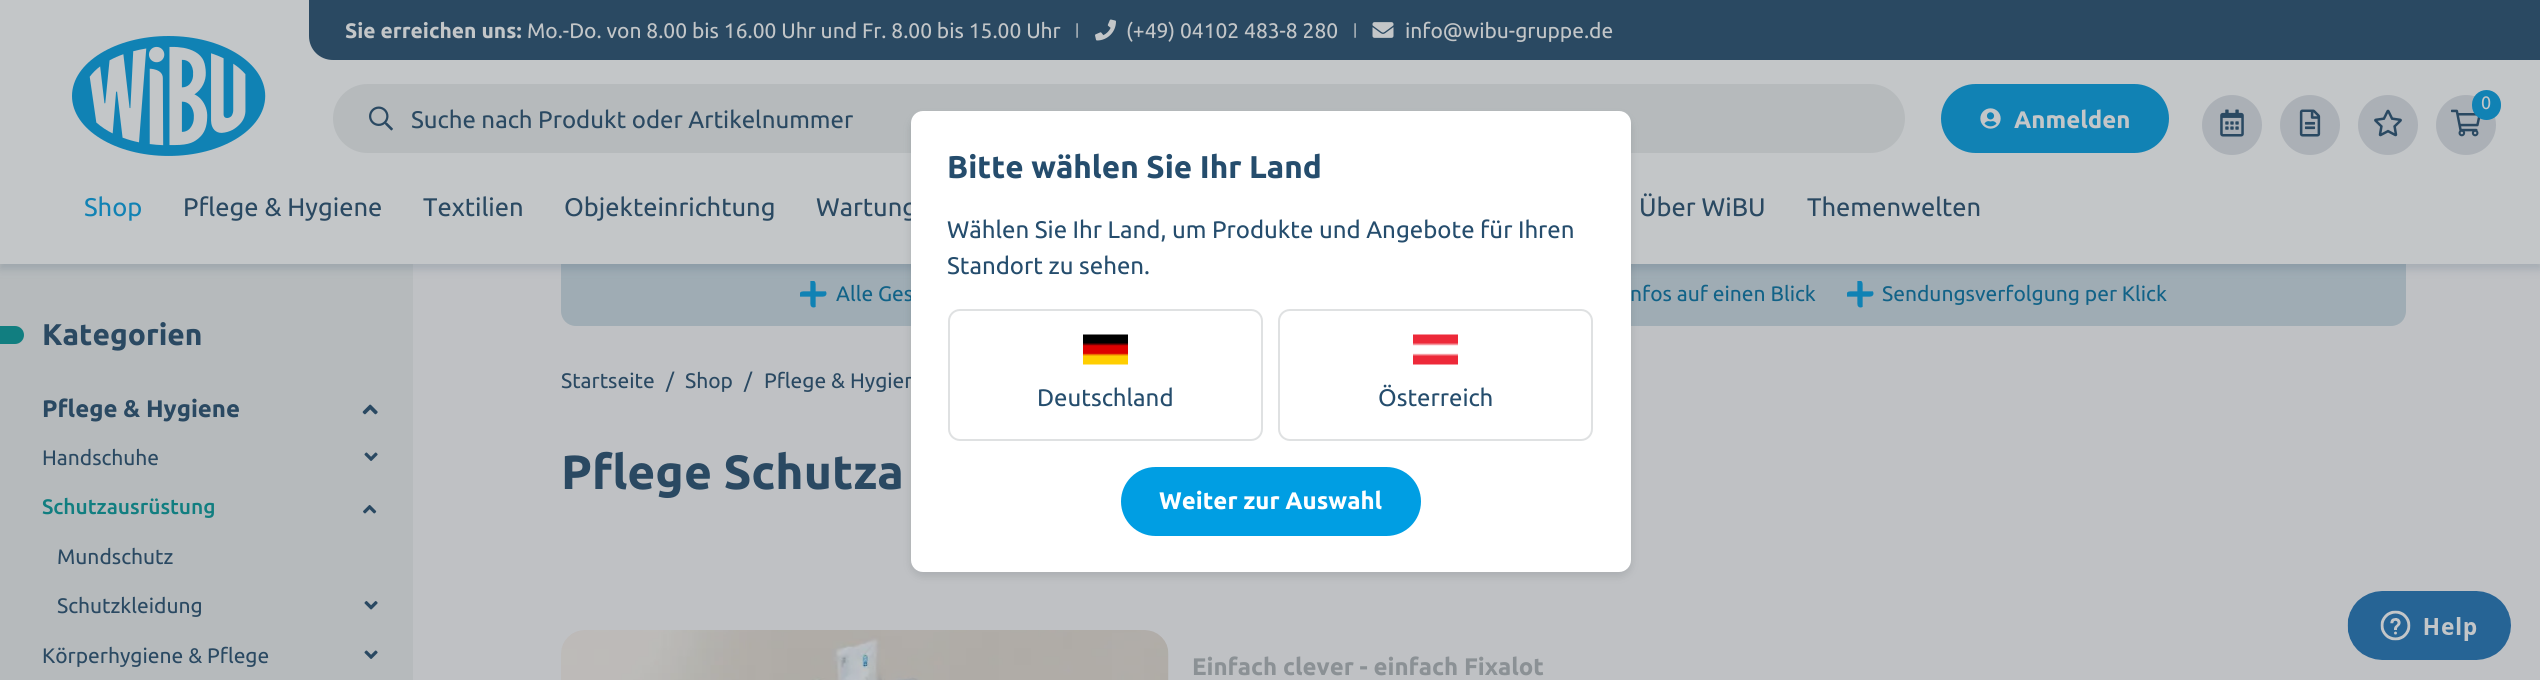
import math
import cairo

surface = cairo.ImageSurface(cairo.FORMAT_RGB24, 2540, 680)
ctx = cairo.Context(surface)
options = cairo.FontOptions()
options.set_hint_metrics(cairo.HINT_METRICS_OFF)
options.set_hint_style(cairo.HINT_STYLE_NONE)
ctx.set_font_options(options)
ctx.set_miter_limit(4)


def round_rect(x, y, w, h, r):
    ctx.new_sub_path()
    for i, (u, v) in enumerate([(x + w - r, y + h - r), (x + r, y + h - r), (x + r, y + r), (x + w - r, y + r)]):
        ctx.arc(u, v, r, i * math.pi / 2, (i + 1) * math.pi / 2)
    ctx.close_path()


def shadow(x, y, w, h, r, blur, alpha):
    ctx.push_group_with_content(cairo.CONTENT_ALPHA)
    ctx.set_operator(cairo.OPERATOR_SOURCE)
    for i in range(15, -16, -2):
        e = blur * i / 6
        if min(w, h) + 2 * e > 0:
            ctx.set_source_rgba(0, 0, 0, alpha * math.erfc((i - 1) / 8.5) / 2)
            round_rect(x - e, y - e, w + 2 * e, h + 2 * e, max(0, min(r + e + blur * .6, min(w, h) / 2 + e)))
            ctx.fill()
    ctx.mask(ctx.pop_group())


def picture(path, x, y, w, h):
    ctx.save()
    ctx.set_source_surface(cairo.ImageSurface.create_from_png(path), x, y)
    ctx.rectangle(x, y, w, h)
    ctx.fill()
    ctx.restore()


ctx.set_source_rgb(0.749, 0.757, 0.769)
ctx.paint()
ctx.set_source_rgb(0.714, 0.729, 0.737)
ctx.rectangle(0, 264, 413, 416)
ctx.fill()
ctx.set_source_rgb(0.624, 0.675, 0.706)
ctx.new_path()
ctx.move_to(561, 264)
ctx.line_to(2406, 264)
ctx.line_to(2406, 311)
ctx.curve_to(2406, 319.5, 2399.5, 326, 2391, 326)
ctx.line_to(576, 326)
ctx.curve_to(567.5, 326, 561, 319.5, 561, 311)
ctx.close_path()
ctx.fill()
picture("img14.png", 800, 281, 27, 27)
picture("img14.png", 1847, 281, 27, 27)
ctx.set_source_rgb(0.165, 0.286, 0.384)
shadow(0, 5, 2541, 264, 0, 4.5, 0.18)
ctx.set_source_rgb(0.765, 0.776, 0.784)
ctx.rectangle(0, 0, 2540, 264)
ctx.fill()
picture("img1.png", 72, 36, 194, 120)
ctx.set_source_rgb(0.165, 0.286, 0.384)
ctx.new_path()
ctx.move_to(309, 0)
ctx.line_to(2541, 0)
ctx.line_to(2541, 60)
ctx.line_to(333, 60)
ctx.curve_to(319.5, 60, 309, 49.5, 309, 36)
ctx.close_path()
ctx.fill()
ctx.select_font_face("Ubuntu", cairo.FONT_SLANT_NORMAL, cairo.FONT_WEIGHT_BOLD)
ctx.set_font_size(21)
ctx.set_source_rgb(0.765, 0.776, 0.784)
ctx.move_to(345, 38)
ctx.show_text("Sie erreichen uns:")
ctx.select_font_face("Ubuntu")
ctx.move_to(527, 38)
ctx.show_text("Mo.-Do. von 8.00 bis 16.00 Uhr und Fr. 8.00 bis 15.00 Uhr")
ctx.set_font_size(15)
ctx.move_to(1075, 35)
ctx.show_text("|")
picture("img2.png", 1095, 19, 21, 22)
ctx.set_font_size(21)
ctx.move_to(1126, 38)
ctx.show_text("(+49) 04102 483-8 280")
ctx.set_font_size(15)
ctx.move_to(1353, 35)
ctx.show_text("|")
picture("img3.png", 1372, 22, 22, 16)
ctx.set_font_size(21)
ctx.move_to(1405, 38)
ctx.show_text("info@wibu-gruppe.de")
ctx.set_source_rgb(0.714, 0.729, 0.737)
round_rect(333, 84, 1572, 69, 34.5)
ctx.fill()
picture("img4.png", 369, 106, 24, 25)
ctx.set_font_size(24)
ctx.set_source_rgb(0.165, 0.286, 0.384)
ctx.move_to(411, 128)
ctx.show_text("Suche nach Produkt oder Artikelnummer")
ctx.set_source_rgb(0.671, 0.69, 0.714)
ctx.new_path()
ctx.arc(2232, 125, 30, 0, 2 * math.pi)
ctx.fill()
picture("img5.png", 2220, 109, 24, 28)
ctx.arc(2310, 125, 30, 0, 2 * math.pi)
ctx.fill()
picture("img6.png", 2299, 109, 22, 28)
ctx.arc(2388, 125, 30, 0, 2 * math.pi)
ctx.fill()
picture("img7.png", 2374, 109, 28, 28)
ctx.arc(2466, 125, 30, 0, 2 * math.pi)
ctx.fill()
picture("img8.png", 2451, 109, 30, 28)
ctx.set_source_rgb(0.067, 0.51, 0.706)
round_rect(2472, 90, 29, 30, 14.5)
ctx.fill()
ctx.set_font_size(18)
ctx.set_source_rgb(0.765, 0.776, 0.784)
ctx.move_to(2481, 109)
ctx.show_text("0")
ctx.set_source_rgb(0.067, 0.51, 0.706)
round_rect(1941, 84, 228, 69, 34.5)
ctx.fill()
picture("img9.png", 1980, 108, 21, 21)
ctx.select_font_face("Ubuntu", cairo.FONT_SLANT_NORMAL, cairo.FONT_WEIGHT_BOLD)
ctx.set_font_size(24)
ctx.set_source_rgb(0.765, 0.776, 0.784)
ctx.move_to(2014, 128)
ctx.show_text("Anmelden")
ctx.select_font_face("Ubuntu")
ctx.set_font_size(25.5)
ctx.set_source_rgb(0.067, 0.51, 0.706)
ctx.move_to(84, 216)
ctx.show_text("Shop")
ctx.set_source_rgb(0.165, 0.286, 0.384)
ctx.move_to(183, 216)
ctx.show_text("Pflege & Hygiene")
ctx.move_to(423, 216)
ctx.show_text("Textilien")
ctx.move_to(564, 216)
ctx.show_text("Objekteinrichtung")
ctx.move_to(816, 216)
ctx.show_text("Wartung")
ctx.move_to(1639, 216)
ctx.show_text("Über WiBU")
ctx.move_to(1807, 216)
ctx.show_text("Themenwelten")
ctx.set_source_rgb(0.067, 0.494, 0.502)
ctx.new_path()
ctx.move_to(0, 326)
ctx.line_to(15, 326)
ctx.curve_to(20, 326, 24, 330, 24, 335)
ctx.curve_to(24, 340, 20, 344, 15, 344)
ctx.line_to(0, 344)
ctx.close_path()
ctx.fill()
ctx.select_font_face("Ubuntu", cairo.FONT_SLANT_NORMAL, cairo.FONT_WEIGHT_BOLD)
ctx.set_font_size(30)
ctx.set_source_rgb(0.165, 0.286, 0.384)
ctx.move_to(42, 345)
ctx.show_text("Kategorien")
ctx.set_font_size(24)
ctx.move_to(42, 417)
ctx.show_text("Pflege & Hygiene")
picture("img10.png", 362, 404, 16, 11)
ctx.select_font_face("Ubuntu")
ctx.set_font_size(21)
ctx.move_to(42, 465)
ctx.show_text("Handschuhe")
picture("img11.png", 364, 452, 14, 9)
ctx.select_font_face("Ubuntu Medium")
ctx.set_source_rgb(0.067, 0.494, 0.502)
ctx.move_to(42, 514)
ctx.show_text("Schutzausrüstung")
picture("img12.png", 363, 505, 14, 9)
ctx.select_font_face("Ubuntu")
ctx.set_source_rgb(0.165, 0.286, 0.384)
ctx.move_to(57, 564)
ctx.show_text("Mundschutz")
ctx.move_to(57, 613)
ctx.show_text("Schutzkleidung")
picture("img13.png", 364, 601, 14, 9)
ctx.move_to(42, 663)
ctx.show_text("Körperhygiene & Pflege")
picture("img11.png", 364, 650, 14, 9)
ctx.set_source_rgb(0.067, 0.384, 0.529)
ctx.move_to(836, 301)
ctx.show_text("Alle Ges")
ctx.move_to(1630, 301)
ctx.show_text("nfos auf einen Blick")
ctx.move_to(1882, 301)
ctx.show_text("Sendungsverfolgung per Klick")
ctx.set_source_rgb(0.165, 0.286, 0.384)
ctx.move_to(561, 388)
ctx.show_text("Startseite")
ctx.move_to(666, 388)
ctx.show_text("/")
ctx.move_to(685, 388)
ctx.show_text("Shop")
ctx.move_to(744, 388)
ctx.show_text("/")
ctx.move_to(764, 388)
ctx.show_text("Pflege & Hygien")
ctx.select_font_face("Ubuntu", cairo.FONT_SLANT_NORMAL, cairo.FONT_WEIGHT_BOLD)
ctx.set_font_size(48)
ctx.move_to(561, 489)
ctx.show_text("Pflege Schutza")
picture("img15.png", 561, 630, 608, 50)
ctx.set_font_size(24)
ctx.set_source_rgb(0.545, 0.569, 0.584)
ctx.move_to(1192, 675)
ctx.show_text("Einfach clever - einfach Fixalot")
ctx.set_source_rgb(0.212, 0.255, 0.275)
shadow(911, 116, 720, 460, 12, 4.5, 0.16)
ctx.set_source_rgb(1, 1, 1)
round_rect(911, 111, 720, 461, 12)
ctx.fill()
ctx.set_font_size(31.5)
ctx.set_source_rgb(0.145, 0.302, 0.427)
ctx.move_to(947, 178)
ctx.show_text("Bitte wählen Sie Ihr Land")
ctx.select_font_face("Ubuntu")
ctx.set_font_size(24)
ctx.move_to(947, 238)
ctx.show_text("Wählen Sie Ihr Land, um Produkte und Angebote für Ihren")
ctx.move_to(947, 274)
ctx.show_text("Standort zu sehen.")
round_rect(949, 310, 313, 130, 11)
ctx.set_source_rgb(0.875, 0.882, 0.886)
ctx.stroke()
picture("img16.png", 1083, 334, 45, 31)
ctx.set_source_rgb(0.145, 0.302, 0.427)
ctx.move_to(1037, 406)
ctx.show_text("Deutschland")
round_rect(1279, 310, 313, 130, 11)
ctx.set_source_rgb(0.875, 0.882, 0.886)
ctx.stroke()
picture("img17.png", 1413, 334, 45, 31)
ctx.set_source_rgb(0.145, 0.302, 0.427)
ctx.move_to(1378, 406)
ctx.show_text("Österreich")
ctx.set_source_rgb(0, 0.62, 0.89)
round_rect(1121, 467, 300, 69, 34.5)
ctx.fill()
ctx.select_font_face("Ubuntu", cairo.FONT_SLANT_NORMAL, cairo.FONT_WEIGHT_BOLD)
ctx.set_source_rgb(1, 1, 1)
ctx.move_to(1159, 509)
ctx.show_text("Weiter zur Auswahl")
picture("img18.png", 2347, 591, 164, 69)
surface.write_to_png("page.png")
